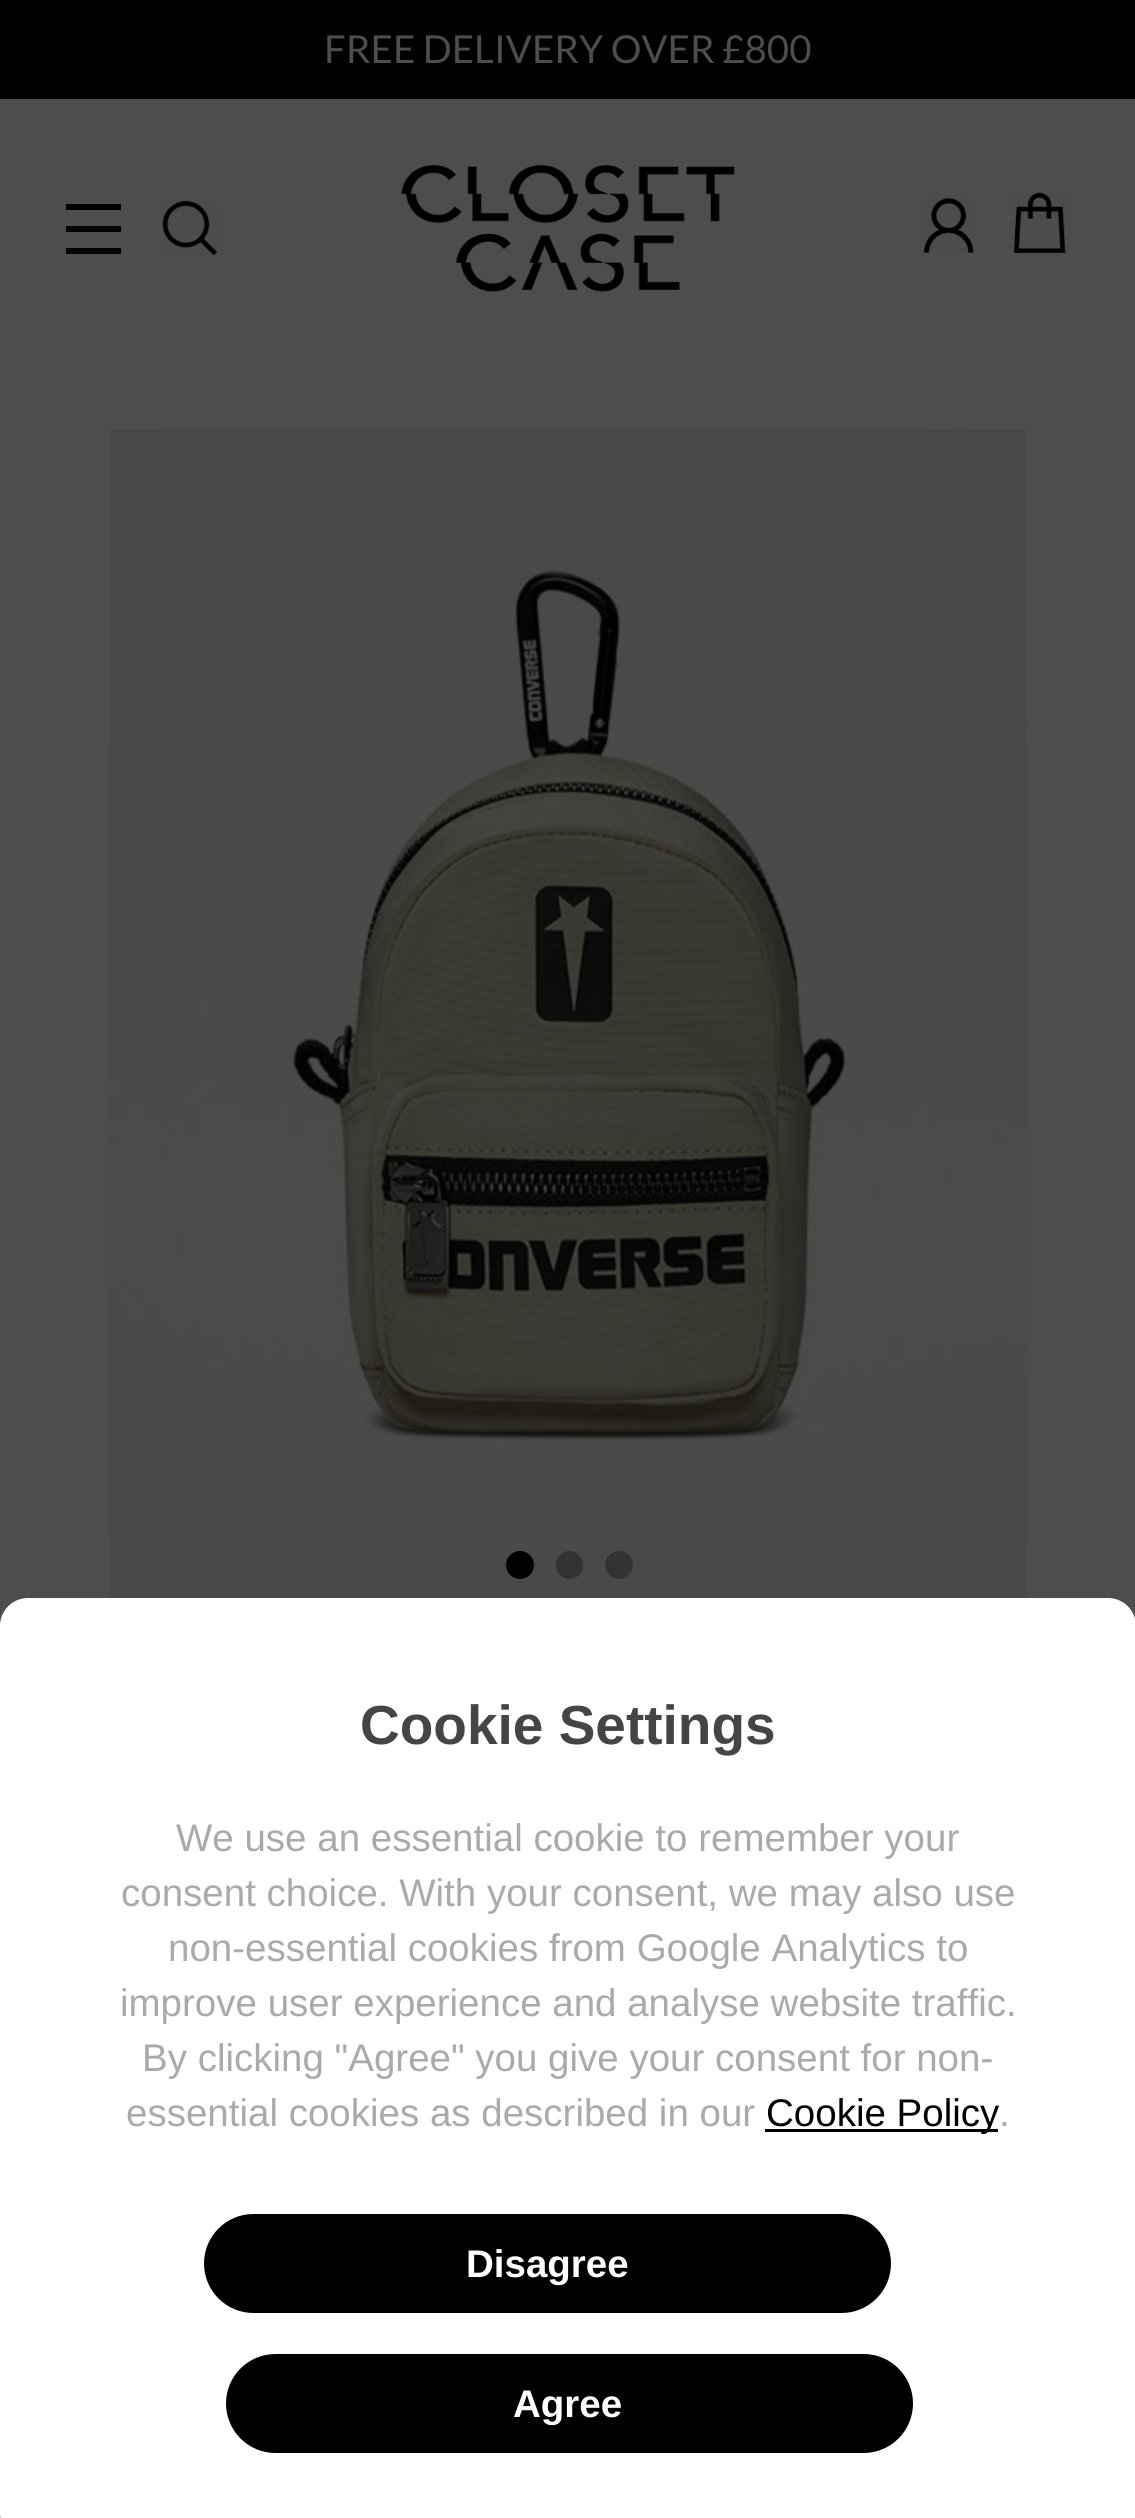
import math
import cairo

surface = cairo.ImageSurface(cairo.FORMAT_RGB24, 1135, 2518)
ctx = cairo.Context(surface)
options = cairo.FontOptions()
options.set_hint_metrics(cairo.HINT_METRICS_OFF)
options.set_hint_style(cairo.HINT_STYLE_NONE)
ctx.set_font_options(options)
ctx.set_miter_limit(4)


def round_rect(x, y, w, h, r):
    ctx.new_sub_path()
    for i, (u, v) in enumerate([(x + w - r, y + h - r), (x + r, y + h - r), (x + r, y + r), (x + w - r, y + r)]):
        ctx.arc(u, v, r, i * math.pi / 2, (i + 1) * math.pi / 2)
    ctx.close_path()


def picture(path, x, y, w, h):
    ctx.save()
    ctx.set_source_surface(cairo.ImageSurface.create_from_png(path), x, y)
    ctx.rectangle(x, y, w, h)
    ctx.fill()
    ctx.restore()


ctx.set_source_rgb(0.302, 0.302, 0.302)
ctx.paint()
ctx.set_source_rgb(0, 0, 0)
ctx.rectangle(0, 0, 1135, 99)
ctx.fill()
ctx.select_font_face("Lato")
ctx.set_font_size(38.5)
ctx.set_source_rgb(0.302, 0.302, 0.302)
ctx.move_to(324, 63)
ctx.show_text("FREE DELIVERY OVER £800")
ctx.set_source_rgb(0, 0, 0)
ctx.rectangle(66, 204, 55, 6)
ctx.fill()
ctx.rectangle(66, 226, 55, 6)
ctx.fill()
ctx.rectangle(66, 248, 55, 6)
ctx.fill()
picture("img1.png", 162, 200, 56, 56)
picture("img2.png", 401, 165, 334, 127)
picture("img3.png", 923, 198, 51, 55)
picture("img4.png", 1013, 192, 53, 61)
picture("img5.png", 110, 429, 916, 1169)
ctx.arc(520, 1565, 14, 0, 2 * math.pi)
ctx.fill()
ctx.set_source_rgb(0.2, 0.2, 0.2)
round_rect(556, 1551, 27, 28, 13.5)
ctx.fill()
ctx.arc(619, 1565, 14, 0, 2 * math.pi)
ctx.fill()
ctx.set_source_rgb(1, 1, 1)
round_rect(0, 1598, 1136, 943, 28)
ctx.fill()
ctx.select_font_face("Liberation Sans", cairo.FONT_SLANT_NORMAL, cairo.FONT_WEIGHT_BOLD)
ctx.set_font_size(55)
ctx.set_source_rgb(0.271, 0.271, 0.271)
ctx.move_to(360, 1744)
ctx.show_text("Cookie Settings")
ctx.select_font_face("Liberation Sans")
ctx.set_font_size(38.5)
ctx.set_source_rgb(0.667, 0.667, 0.667)
ctx.move_to(176, 1851)
ctx.show_text("We use an essential cookie to remember your")
ctx.move_to(121, 1906)
ctx.show_text("consent choice. With your consent, we may also use")
ctx.move_to(168, 1961)
ctx.show_text("non-essential cookies from Google Analytics to")
ctx.move_to(120, 2016)
ctx.show_text("improve user experience and analyse website traffic.")
ctx.move_to(142, 2071)
ctx.show_text("By clicking \"Agree\" you give your consent for non-")
ctx.move_to(126, 2126)
ctx.show_text("essential cookies as described in our")
ctx.set_source_rgb(0, 0, 0)
ctx.rectangle(765, 2129, 233, 3)
ctx.fill()
ctx.move_to(766, 2126)
ctx.show_text("Cookie Policy")
ctx.set_source_rgb(0.667, 0.667, 0.667)
ctx.move_to(999, 2126)
ctx.show_text(".")
ctx.set_source_rgb(0, 0, 0)
round_rect(204, 2214, 687, 99, 49.5)
ctx.fill()
ctx.select_font_face("Liberation Sans", cairo.FONT_SLANT_NORMAL, cairo.FONT_WEIGHT_BOLD)
ctx.set_source_rgb(1, 1, 1)
ctx.move_to(466, 2277)
ctx.show_text("Disagree")
ctx.set_source_rgb(0, 0, 0)
round_rect(226, 2354, 687, 99, 49.5)
ctx.fill()
ctx.set_source_rgb(1, 1, 1)
ctx.move_to(513, 2417)
ctx.show_text("Agree")
surface.write_to_png("page.png")
